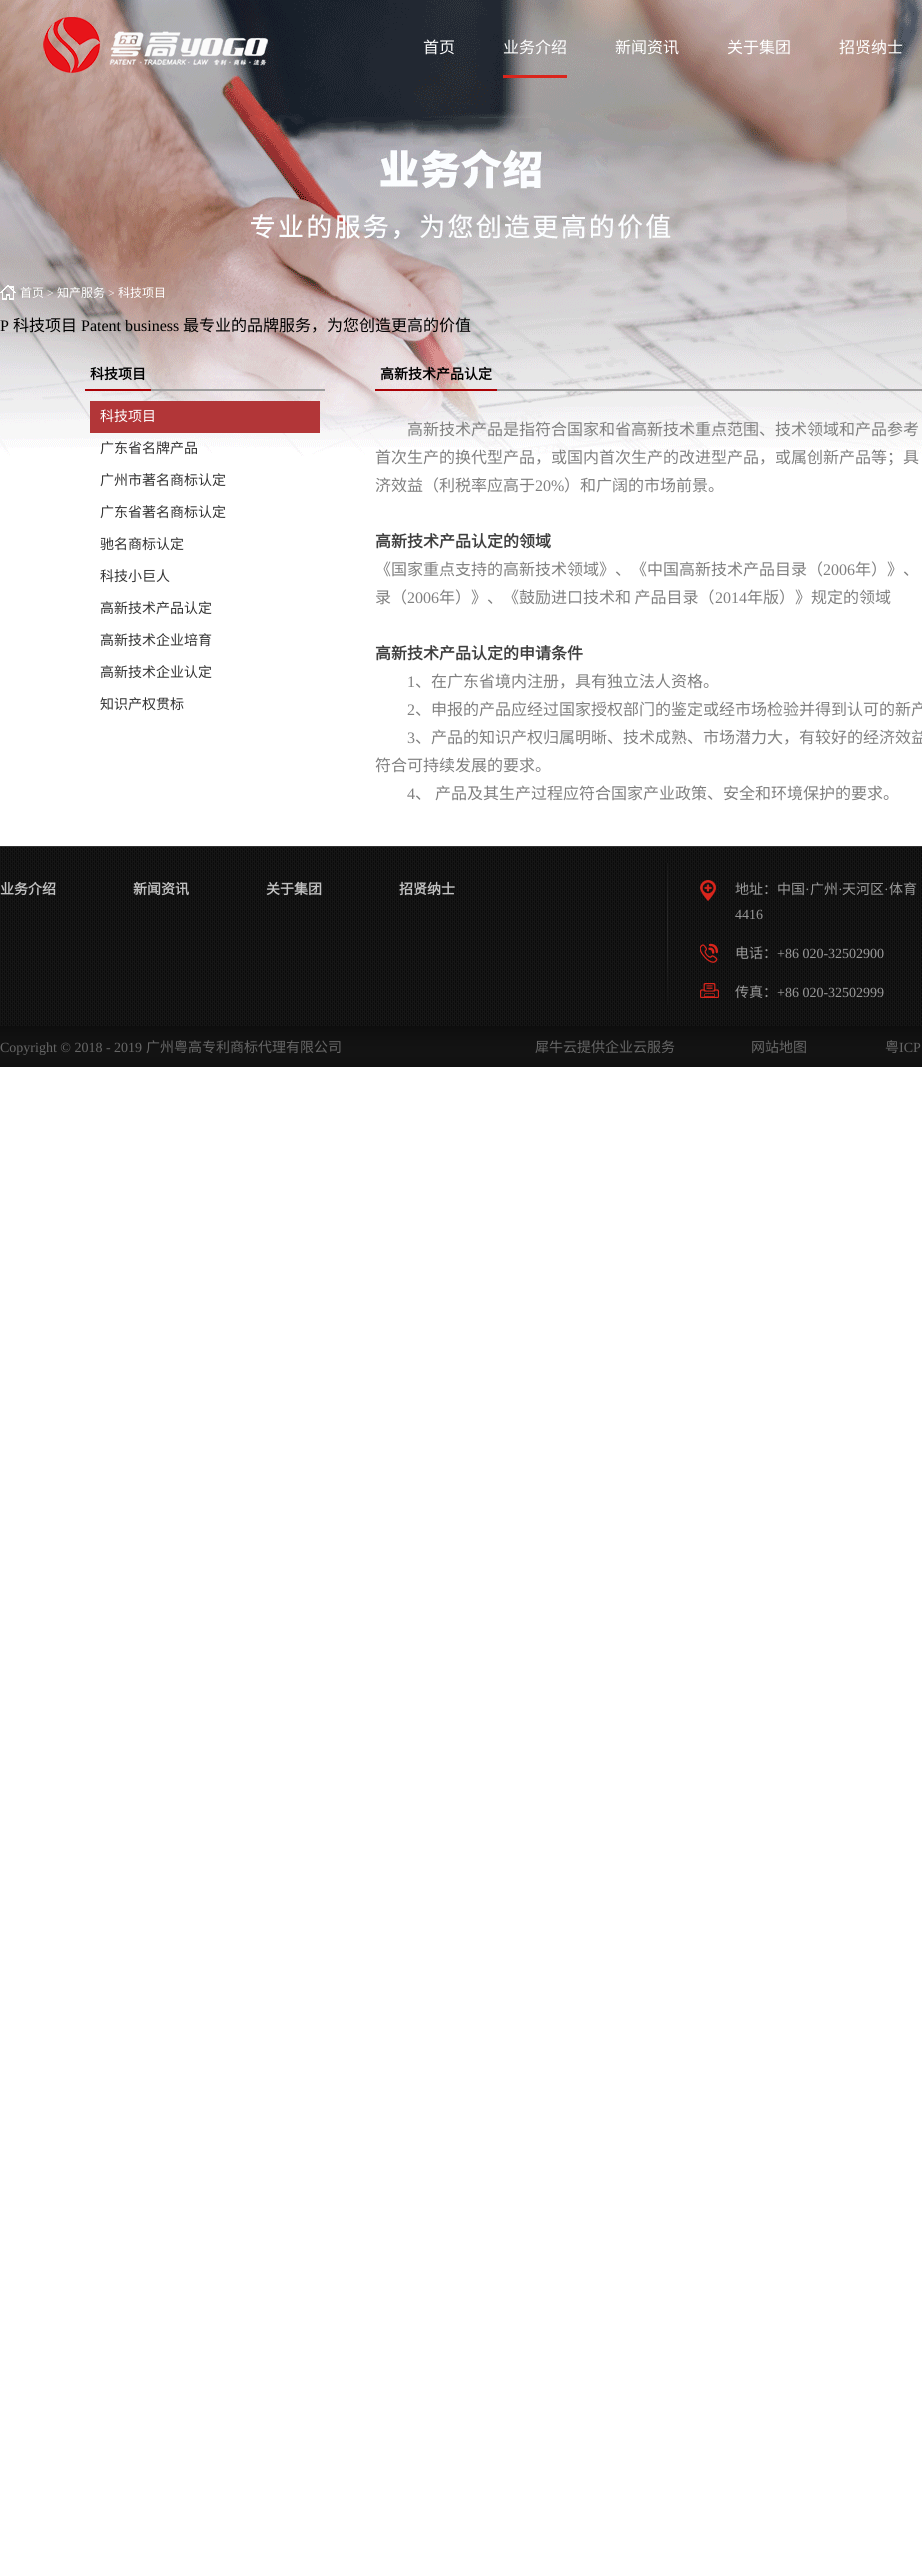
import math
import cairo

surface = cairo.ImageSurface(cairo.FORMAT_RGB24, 922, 2562)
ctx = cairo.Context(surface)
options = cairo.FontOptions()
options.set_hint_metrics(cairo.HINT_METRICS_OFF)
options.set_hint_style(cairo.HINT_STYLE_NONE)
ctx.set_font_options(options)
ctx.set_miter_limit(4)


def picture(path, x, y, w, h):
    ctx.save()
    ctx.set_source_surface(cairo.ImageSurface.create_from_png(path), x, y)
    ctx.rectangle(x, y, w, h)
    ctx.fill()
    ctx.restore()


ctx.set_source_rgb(1, 1, 1)
ctx.paint()
picture("img1.png", 0, 0, 922, 456)
picture("img2.png", 43, 17, 225, 56)
ctx.select_font_face("Noto Sans CJK SC")
ctx.set_font_size(16)
ctx.set_source_rgb(1, 1, 1)
ctx.move_to(423, 53)
ctx.show_text("首页")
ctx.set_source_rgb(0.855, 0.145, 0.11)
ctx.rectangle(503, 75, 64, 3)
ctx.fill()
ctx.set_source_rgb(1, 1, 1)
ctx.move_to(503, 53)
ctx.show_text("业务介绍")
ctx.move_to(615, 53)
ctx.show_text("新闻资讯")
ctx.move_to(727, 53)
ctx.show_text("关于集团")
ctx.move_to(839, 53)
ctx.show_text("招贤纳士")
picture("img3.png", 0, 285, 16, 15)
ctx.set_font_size(12)
ctx.move_to(20, 297)
ctx.show_text("首页")
ctx.select_font_face("Liberation Serif")
ctx.move_to(47, 297)
ctx.show_text(">")
ctx.select_font_face("Noto Sans CJK SC")
ctx.move_to(57, 297)
ctx.show_text("知产服务")
ctx.select_font_face("Liberation Serif")
ctx.move_to(108, 297)
ctx.show_text(">")
ctx.select_font_face("Noto Sans CJK SC")
ctx.move_to(118, 297)
ctx.show_text("科技项目")
ctx.select_font_face("Liberation Serif")
ctx.set_font_size(16)
ctx.set_source_rgb(0, 0, 0)
ctx.move_to(0, 331)
ctx.show_text("P")
ctx.select_font_face("Noto Sans CJK SC")
ctx.move_to(13, 331)
ctx.show_text("科技项目")
ctx.select_font_face("Liberation Serif")
ctx.move_to(81, 331)
ctx.show_text("Patent business")
ctx.select_font_face("Noto Sans CJK SC")
ctx.move_to(183, 331)
ctx.show_text("最专业的品牌服务，为您创造更高的价值")
ctx.set_source_rgb(0.612, 0.612, 0.612)
ctx.rectangle(151, 389, 174, 2)
ctx.fill()
ctx.set_source_rgb(0.667, 0, 0.016)
ctx.rectangle(85, 389, 66, 2)
ctx.fill()
ctx.select_font_face("Noto Sans CJK SC", cairo.FONT_SLANT_NORMAL, cairo.FONT_WEIGHT_BOLD)
ctx.set_font_size(14)
ctx.set_source_rgb(0, 0, 0)
ctx.move_to(90, 379)
ctx.show_text("科技项目")
ctx.set_source_rgb(0.698, 0.212, 0.22)
ctx.rectangle(90, 401, 230, 32)
ctx.fill()
ctx.select_font_face("Noto Sans CJK SC")
ctx.set_source_rgb(1, 1, 1)
ctx.move_to(100, 421)
ctx.show_text("科技项目")
ctx.set_source_rgb(0.2, 0.2, 0.2)
ctx.move_to(100, 453)
ctx.show_text("广东省名牌产品")
ctx.move_to(100, 485)
ctx.show_text("广州市著名商标认定")
ctx.move_to(100, 517)
ctx.show_text("广东省著名商标认定")
ctx.move_to(100, 549)
ctx.show_text("驰名商标认定")
ctx.move_to(100, 581)
ctx.show_text("科技小巨人")
ctx.move_to(100, 613)
ctx.show_text("高新技术产品认定")
ctx.move_to(100, 645)
ctx.show_text("高新技术企业培育")
ctx.move_to(100, 677)
ctx.show_text("高新技术企业认定")
ctx.move_to(100, 709)
ctx.show_text("知识产权贯标")
ctx.set_source_rgb(0.612, 0.612, 0.612)
ctx.rectangle(497, 389, 425, 2)
ctx.fill()
ctx.set_source_rgb(0.667, 0, 0.016)
ctx.rectangle(375, 389, 122, 2)
ctx.fill()
ctx.select_font_face("Noto Sans CJK SC", cairo.FONT_SLANT_NORMAL, cairo.FONT_WEIGHT_BOLD)
ctx.set_source_rgb(0, 0, 0)
ctx.move_to(380, 379)
ctx.show_text("高新技术产品认定")
ctx.select_font_face("Noto Sans CJK SC")
ctx.set_font_size(16)
ctx.set_source_rgb(0.498, 0.498, 0.498)
ctx.move_to(407, 435)
ctx.show_text("高新技术产品是指符合国家和省高新技术重点范围、技术领域和产品参考")
ctx.move_to(375, 463)
ctx.show_text("首次生产的换代型产品，或国内首次生产的改进型产品，或属创新产品等；具")
ctx.move_to(375, 491)
ctx.show_text("济效益（利税率应高于")
ctx.select_font_face("Liberation Serif")
ctx.move_to(535, 491)
ctx.show_text("20%")
ctx.select_font_face("Noto Sans CJK SC")
ctx.move_to(564, 491)
ctx.show_text("）和广阔的市场前景。")
ctx.select_font_face("Noto Sans CJK SC", cairo.FONT_SLANT_NORMAL, cairo.FONT_WEIGHT_BOLD)
ctx.set_source_rgb(0.247, 0.247, 0.247)
ctx.move_to(375, 547)
ctx.show_text("高新技术产品认定的领域")
ctx.select_font_face("Noto Sans CJK SC")
ctx.set_source_rgb(0.498, 0.498, 0.498)
ctx.move_to(375, 575)
ctx.show_text("《国家重点支持的高新技术领域》、《中国高新技术产品目录（")
ctx.select_font_face("Liberation Serif")
ctx.move_to(823, 575)
ctx.show_text("2006")
ctx.select_font_face("Noto Sans CJK SC")
ctx.move_to(855, 575)
ctx.show_text("年）》、")
ctx.move_to(375, 603)
ctx.show_text("录（")
ctx.select_font_face("Liberation Serif")
ctx.move_to(407, 603)
ctx.show_text("2006")
ctx.select_font_face("Noto Sans CJK SC")
ctx.move_to(439, 603)
ctx.show_text("年）》、《鼓励进口技术和 产品目录（")
ctx.select_font_face("Liberation Serif")
ctx.move_to(715, 603)
ctx.show_text("2014")
ctx.select_font_face("Noto Sans CJK SC")
ctx.move_to(747, 603)
ctx.show_text("年版）》规定的领域")
ctx.select_font_face("Noto Sans CJK SC", cairo.FONT_SLANT_NORMAL, cairo.FONT_WEIGHT_BOLD)
ctx.set_source_rgb(0.247, 0.247, 0.247)
ctx.move_to(375, 659)
ctx.show_text("高新技术产品认定的申请条件")
ctx.select_font_face("Liberation Serif")
ctx.set_source_rgb(0.498, 0.498, 0.498)
ctx.move_to(407, 687)
ctx.show_text("1")
ctx.select_font_face("Noto Sans CJK SC")
ctx.move_to(415, 687)
ctx.show_text("、在广东省境内注册，具有独立法人资格。")
ctx.select_font_face("Liberation Serif")
ctx.move_to(407, 715)
ctx.show_text("2")
ctx.select_font_face("Noto Sans CJK SC")
ctx.move_to(415, 715)
ctx.show_text("、申报的产品应经过国家授权部门的鉴定或经市场检验并得到认可的新产")
ctx.select_font_face("Liberation Serif")
ctx.move_to(407, 743)
ctx.show_text("3")
ctx.select_font_face("Noto Sans CJK SC")
ctx.move_to(415, 743)
ctx.show_text("、产品的知识产权归属明晰、技术成熟、市场潜力大，有较好的经济效益")
ctx.move_to(375, 771)
ctx.show_text("符合可持续发展的要求。")
ctx.select_font_face("Liberation Serif")
ctx.move_to(407, 799)
ctx.show_text("4")
ctx.select_font_face("Noto Sans CJK SC")
ctx.move_to(415, 799)
ctx.show_text("、")
ctx.move_to(435, 799)
ctx.show_text("产品及其生产过程应符合国家产业政策、安全和环境保护的要求。")
picture("img4.png", 0, 847, 922, 220)
ctx.set_source_rgb(0.192, 0.192, 0.192)
ctx.rectangle(0, 846, 922, 1)
ctx.fill()
picture("img5.png", 665, 863, 3, 142)
ctx.select_font_face("Noto Sans CJK SC", cairo.FONT_SLANT_NORMAL, cairo.FONT_WEIGHT_BOLD)
ctx.set_font_size(14)
ctx.set_source_rgb(0.757, 0.757, 0.757)
ctx.move_to(0, 894)
ctx.show_text("业务介绍")
ctx.move_to(133, 894)
ctx.show_text("新闻资讯")
ctx.move_to(266, 894)
ctx.show_text("关于集团")
ctx.move_to(399, 894)
ctx.show_text("招贤纳士")
picture("img6.png", 700, 880, 16, 21)
ctx.select_font_face("Noto Sans CJK SC")
ctx.set_source_rgb(0.6, 0.6, 0.6)
ctx.move_to(735, 894)
ctx.show_text("地址：中国")
ctx.select_font_face("Liberation Serif")
ctx.move_to(805, 894)
ctx.show_text("·")
ctx.select_font_face("Noto Sans CJK SC")
ctx.move_to(810, 894)
ctx.show_text("广州")
ctx.select_font_face("Liberation Serif")
ctx.move_to(838, 894)
ctx.show_text("·")
ctx.select_font_face("Noto Sans CJK SC")
ctx.move_to(842, 894)
ctx.show_text("天河区")
ctx.select_font_face("Liberation Serif")
ctx.move_to(884, 894)
ctx.show_text("·")
ctx.select_font_face("Noto Sans CJK SC")
ctx.move_to(889, 894)
ctx.show_text("体育")
ctx.select_font_face("Liberation Serif")
ctx.move_to(735, 919)
ctx.show_text("4416")
picture("img7.png", 700, 943, 18, 20)
ctx.select_font_face("Noto Sans CJK SC")
ctx.move_to(735, 958)
ctx.show_text("电话：")
ctx.select_font_face("Liberation Serif")
ctx.move_to(777, 958)
ctx.show_text("+86 020-32502900")
picture("img8.png", 700, 983, 19, 15)
ctx.select_font_face("Noto Sans CJK SC")
ctx.move_to(735, 997)
ctx.show_text("传真：")
ctx.select_font_face("Liberation Serif")
ctx.move_to(777, 997)
ctx.show_text("+86 020-32502999")
ctx.set_source_rgb(0.4, 0.4, 0.4)
ctx.move_to(0, 1052)
ctx.show_text("Copyright © 2018 - 2019")
ctx.select_font_face("Noto Sans CJK SC")
ctx.move_to(146, 1052)
ctx.show_text("广州粤高专利商标代理有限公司")
ctx.move_to(535, 1052)
ctx.show_text("犀牛云提供企业云服务")
ctx.move_to(751, 1052)
ctx.show_text("网站地图")
ctx.move_to(885, 1052)
ctx.show_text("粤")
ctx.select_font_face("Liberation Serif")
ctx.move_to(899, 1052)
ctx.show_text("ICP")
surface.write_to_png("page.png")
